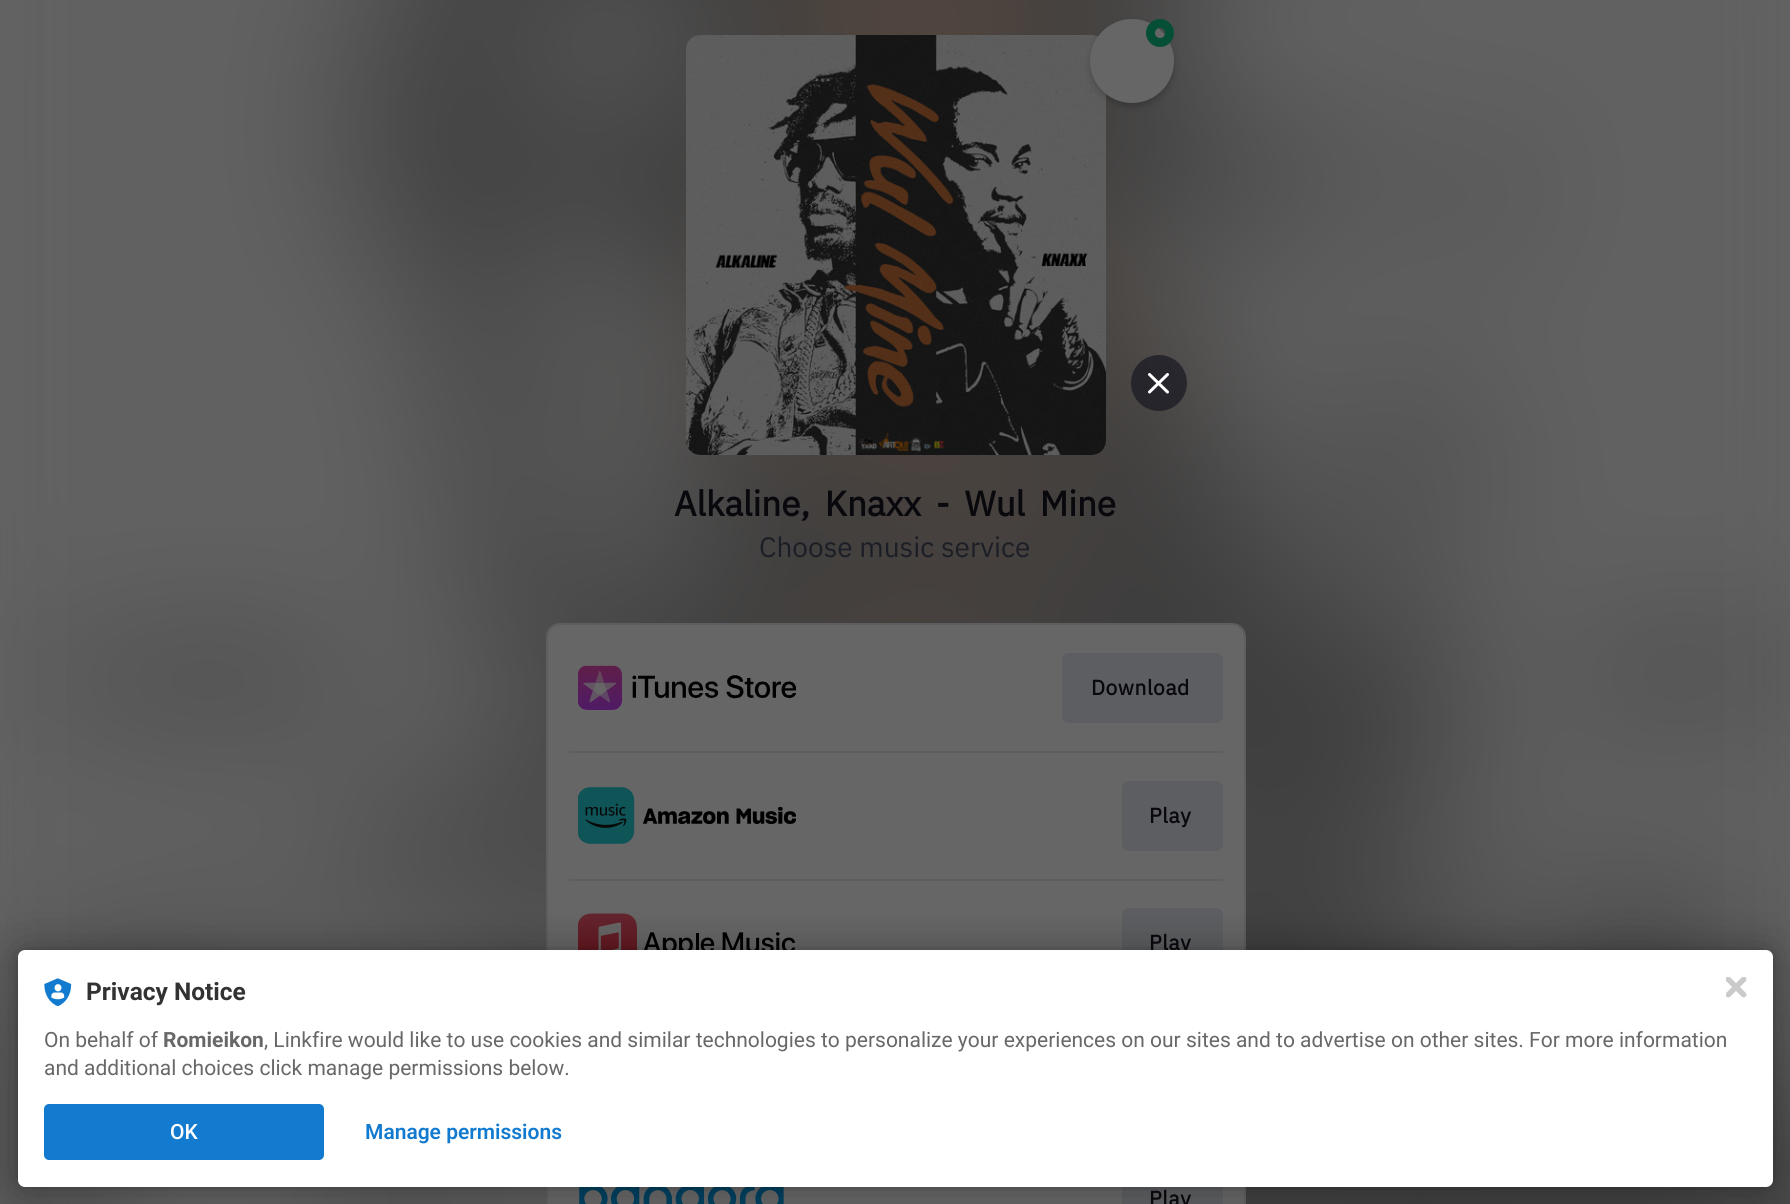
import math
import cairo

surface = cairo.ImageSurface(cairo.FORMAT_RGB24, 1790, 1204)
ctx = cairo.Context(surface)
options = cairo.FontOptions()
options.set_hint_metrics(cairo.HINT_METRICS_OFF)
options.set_hint_style(cairo.HINT_STYLE_NONE)
ctx.set_font_options(options)
ctx.set_miter_limit(4)


def spaced_text(x, y, s, letter, word):
    ctx.move_to(x, y)
    for ch in s:
        ctx.show_text(ch)
        ctx.rel_move_to(letter + word * (ch == ' '), 0)


def round_rect(x, y, w, h, r):
    ctx.new_sub_path()
    for i, (u, v) in enumerate([(x + w - r, y + h - r), (x + r, y + h - r), (x + r, y + r), (x + w - r, y + r)]):
        ctx.arc(u, v, r, i * math.pi / 2, (i + 1) * math.pi / 2)
    ctx.close_path()


def shadow(x, y, w, h, r, blur, alpha):
    ctx.push_group_with_content(cairo.CONTENT_ALPHA)
    ctx.set_operator(cairo.OPERATOR_SOURCE)
    for i in range(15, -16, -2):
        e = blur * i / 6
        if min(w, h) + 2 * e > 0:
            ctx.set_source_rgba(0, 0, 0, alpha * math.erfc((i - 1) / 8.5) / 2)
            round_rect(x - e, y - e, w + 2 * e, h + 2 * e, max(0, min(r + e + blur * .6, min(w, h) / 2 + e)))
            ctx.fill()
    ctx.mask(ctx.pop_group())


def picture(path, x, y, w, h):
    ctx.save()
    ctx.set_source_surface(cairo.ImageSurface.create_from_png(path), x, y)
    ctx.rectangle(x, y, w, h)
    ctx.fill()
    ctx.restore()


ctx.set_source_rgb(0.4, 0.4, 0.4)
ctx.paint()
picture("img1.png", 0, 0, 1790, 1204)
picture("img2.png", 686, 35, 420, 420)
ctx.set_source_rgb(0, 0, 0)
shadow(1090, 23, 84, 84, 42, 3.5, 0.2)
ctx.set_source_rgb(0.4, 0.4, 0.4)
ctx.arc(1132, 61, 42, 0, 2 * math.pi)
ctx.fill()
ctx.arc(1160, 33, 9.5, 0, 2 * math.pi)
ctx.set_source_rgb(0.02, 0.31, 0.212)
ctx.set_line_width(9)
ctx.stroke()
ctx.set_source_rgba(0.094, 0.09, 0.129, 0.7)
ctx.arc(1159, 383, 28, 0, 2 * math.pi)
ctx.fill()
ctx.new_path()
ctx.move_to(1149.5, 374.5)
ctx.line_to(1167.5, 392)
ctx.move_to(1149.5, 392)
ctx.line_to(1167.5, 374.5)
ctx.set_source_rgb(1, 1, 1)
ctx.set_line_width(3)
ctx.set_line_cap(cairo.LINE_CAP_ROUND)
ctx.set_line_join(cairo.LINE_JOIN_ROUND)
ctx.stroke()
ctx.select_font_face("IBM Plex Sans")
ctx.set_font_size(21)
ctx.set_source_rgb(0.353, 0.353, 0.353)
ctx.move_to(814, 81)
ctx.show_text("…")
ctx.select_font_face("IBM Plex Sans", cairo.FONT_SLANT_NORMAL, cairo.FONT_WEIGHT_BOLD)
ctx.set_font_size(35)
ctx.set_source_rgb(0.039, 0.035, 0.051)
spaced_text(674, 516, "Alkaline, Knaxx - Wul Mine", 0, 6.5)
ctx.select_font_face("IBM Plex Sans")
ctx.set_font_size(28)
ctx.set_source_rgb(0.11, 0.118, 0.149)
ctx.move_to(759, 557)
ctx.show_text("Choose music service")
round_rect(547, 624, 698, 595, 13)
ctx.set_source_rgb(0.361, 0.369, 0.38)
ctx.set_line_width(2)
ctx.set_line_cap(cairo.LINE_CAP_BUTT)
ctx.set_line_join(cairo.LINE_JOIN_MITER)
ctx.stroke()
ctx.set_source_rgb(0.4, 0.4, 0.4)
round_rect(548, 625, 696, 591, 12)
ctx.fill()
picture("img3.png", 578, 665, 218, 45)
ctx.set_source_rgb(0.361, 0.369, 0.38)
round_rect(1062, 653, 161, 70, 7)
ctx.fill()
ctx.select_font_face("IBM Plex Sans", cairo.FONT_SLANT_NORMAL, cairo.FONT_WEIGHT_BOLD)
ctx.set_font_size(21)
ctx.set_source_rgb(0.039, 0.035, 0.051)
spaced_text(1091, 695, "Download", 0.5, 0)
ctx.set_source_rgb(0.361, 0.369, 0.38)
ctx.rectangle(569, 751, 654, 2)
ctx.fill()
picture("img4.png", 578, 787, 218, 57)
round_rect(1122, 781, 101, 70, 7)
ctx.fill()
ctx.set_source_rgb(0.039, 0.035, 0.051)
spaced_text(1149, 823, "Play", 0.5, 0)
ctx.set_source_rgb(0.361, 0.369, 0.38)
ctx.rectangle(569, 879, 654, 2)
ctx.fill()
picture("img5.png", 578, 913, 218, 37)
round_rect(1122, 908, 101, 70, 7)
ctx.fill()
ctx.set_source_rgb(0.039, 0.035, 0.051)
spaced_text(1149, 950, "Play", 0.5, 0)
picture("img6.png", 579, 1187, 205, 17)
ctx.set_source_rgb(0.361, 0.369, 0.38)
ctx.rectangle(1122, 1187, 101, 17)
ctx.fill()
ctx.set_source_rgb(0.039, 0.035, 0.051)
spaced_text(1149, 1206, "Play", 0.5, 0)
ctx.set_source_rgb(0, 0, 0)
shadow(18, 950, 1755, 237, 7, 3.5, 0.12)
shadow(18, 950, 1755, 237, 7, 21, 0.3)
ctx.set_source_rgb(1, 1, 1)
round_rect(18, 950, 1755, 237, 7)
ctx.fill()
picture("img7.png", 44, 978, 28, 28)
ctx.select_font_face("Roboto", cairo.FONT_SLANT_NORMAL, cairo.FONT_WEIGHT_BOLD)
ctx.set_font_size(24.5)
ctx.set_source_rgb(0.196, 0.196, 0.196)
ctx.move_to(86, 1000)
ctx.show_text("Privacy Notice")
ctx.select_font_face("Roboto")
ctx.set_font_size(21)
ctx.set_source_rgb(0.408, 0.408, 0.408)
ctx.move_to(44, 1047)
ctx.show_text("On behalf of")
ctx.select_font_face("Roboto", cairo.FONT_SLANT_NORMAL, cairo.FONT_WEIGHT_BOLD)
ctx.move_to(163, 1047)
ctx.show_text("Romieikon")
ctx.select_font_face("Roboto")
ctx.move_to(264, 1047)
ctx.show_text(", Linkfire would like to use cookies and similar technologies to personalize your experiences on our sites and to advertise on other sites. For more information")
ctx.move_to(44, 1075)
ctx.show_text("and additional choices click manage permissions below.")
ctx.set_source_rgb(0.075, 0.482, 0.812)
round_rect(44, 1104, 280, 56, 5)
ctx.fill()
ctx.select_font_face("Roboto Medium")
ctx.set_source_rgb(1, 1, 1)
ctx.move_to(170, 1139)
ctx.show_text("OK")
ctx.select_font_face("Roboto SemiBold")
ctx.set_source_rgb(0.075, 0.482, 0.812)
ctx.move_to(365, 1139)
ctx.show_text("Manage permissions")
picture("img8.png", 1726, 977, 21, 21)
surface.write_to_png("page.png")
